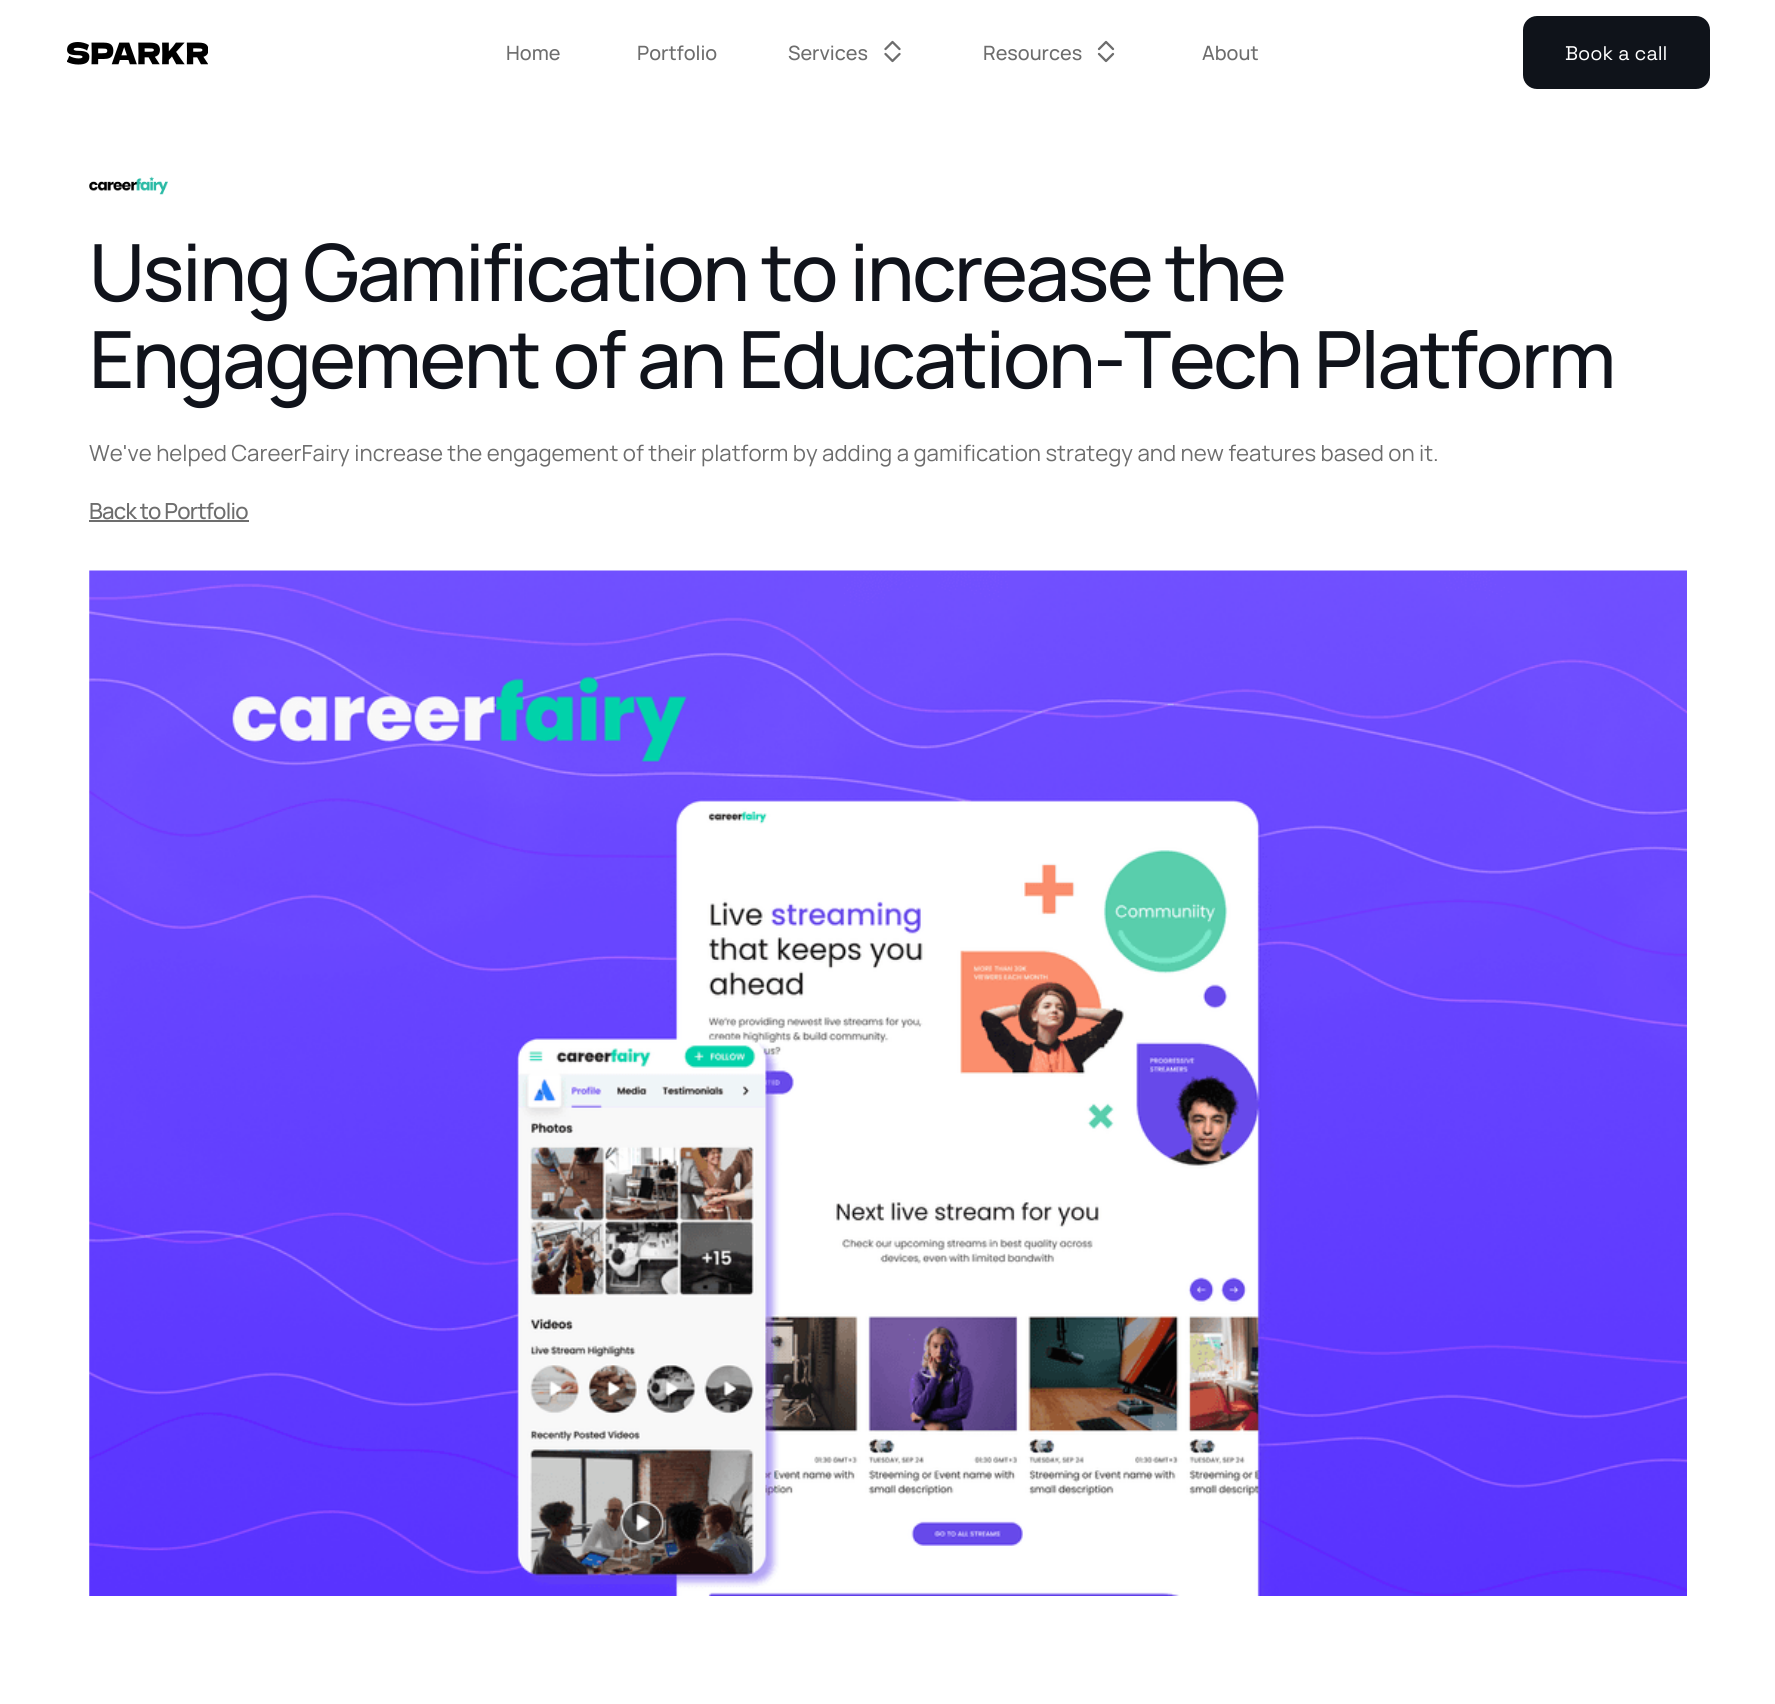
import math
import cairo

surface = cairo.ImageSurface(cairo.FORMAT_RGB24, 1775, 1704)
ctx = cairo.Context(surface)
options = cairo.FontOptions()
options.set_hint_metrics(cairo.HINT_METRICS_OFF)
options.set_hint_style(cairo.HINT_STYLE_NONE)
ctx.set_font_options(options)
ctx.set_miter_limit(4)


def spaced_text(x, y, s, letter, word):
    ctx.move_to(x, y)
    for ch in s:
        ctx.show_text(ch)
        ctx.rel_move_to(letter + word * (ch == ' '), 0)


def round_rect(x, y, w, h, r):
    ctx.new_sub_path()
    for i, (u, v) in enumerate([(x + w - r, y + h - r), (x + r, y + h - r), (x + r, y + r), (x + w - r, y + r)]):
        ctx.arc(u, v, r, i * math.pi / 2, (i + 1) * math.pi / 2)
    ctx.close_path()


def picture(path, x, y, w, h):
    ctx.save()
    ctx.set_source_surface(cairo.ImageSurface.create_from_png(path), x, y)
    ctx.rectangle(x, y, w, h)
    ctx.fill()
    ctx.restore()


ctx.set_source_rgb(1, 1, 1)
ctx.paint()
picture("img1.png", 67, 42, 141, 23)
ctx.select_font_face("Manrope Medium")
ctx.set_font_size(19.75)
ctx.set_source_rgb(0.427, 0.427, 0.427)
ctx.move_to(506, 60)
ctx.show_text("Home")
ctx.move_to(637, 60)
ctx.show_text("Portfolio")
ctx.move_to(788, 60)
ctx.show_text("Services")
ctx.new_path()
ctx.move_to(885.5, 49)
ctx.line_to(892.5, 42)
ctx.line_to(899.5, 49)
ctx.move_to(885.5, 54)
ctx.line_to(892.5, 61)
ctx.line_to(899.5, 54)
ctx.set_line_width(2.3)
ctx.set_line_cap(cairo.LINE_CAP_ROUND)
ctx.set_line_join(cairo.LINE_JOIN_ROUND)
ctx.stroke()
ctx.move_to(983, 60)
ctx.show_text("Resources")
ctx.new_path()
ctx.move_to(1099, 49)
ctx.line_to(1106, 42)
ctx.line_to(1113, 49)
ctx.move_to(1099, 54)
ctx.line_to(1106, 61)
ctx.line_to(1113, 54)
ctx.stroke()
ctx.move_to(1202, 60)
ctx.show_text("About")
ctx.set_source_rgb(0.059, 0.075, 0.102)
round_rect(1523, 16, 187, 73, 14)
ctx.fill()
ctx.select_font_face("Space Grotesk")
ctx.set_source_rgb(1, 1, 1)
ctx.move_to(1565, 60)
ctx.show_text("Book a call")
picture("img2.png", 89, 176, 79, 19)
ctx.select_font_face("Manrope Medium")
ctx.set_font_size(78.9)
ctx.set_source_rgb(0.063, 0.078, 0.106)
spaced_text(89, 301, "Using Gamification to increase the", -2.35, 0)
spaced_text(89, 388, "Engagement of an Education-Tech Platform", -2.35, 0)
ctx.select_font_face("Manrope")
ctx.set_font_size(22.2)
ctx.set_source_rgb(0.427, 0.427, 0.427)
ctx.move_to(89, 461)
ctx.show_text("We've helped CareerFairy increase the engagement of their platform by adding a gamification strategy and new features based on it.")
ctx.select_font_face("Manrope Medium")
spaced_text(89, 519, "Back to Portfolio", -0.75, 0)
ctx.rectangle(89, 520, 160, 2)
ctx.fill()
picture("img3.png", 89, 570, 1598, 1026)
surface.write_to_png("page.png")
